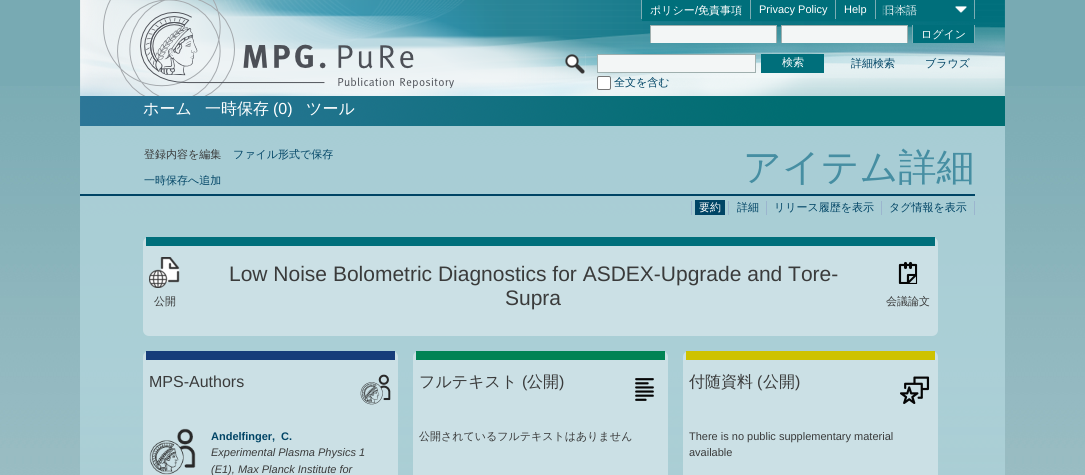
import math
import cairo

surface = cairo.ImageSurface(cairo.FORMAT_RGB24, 1085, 475)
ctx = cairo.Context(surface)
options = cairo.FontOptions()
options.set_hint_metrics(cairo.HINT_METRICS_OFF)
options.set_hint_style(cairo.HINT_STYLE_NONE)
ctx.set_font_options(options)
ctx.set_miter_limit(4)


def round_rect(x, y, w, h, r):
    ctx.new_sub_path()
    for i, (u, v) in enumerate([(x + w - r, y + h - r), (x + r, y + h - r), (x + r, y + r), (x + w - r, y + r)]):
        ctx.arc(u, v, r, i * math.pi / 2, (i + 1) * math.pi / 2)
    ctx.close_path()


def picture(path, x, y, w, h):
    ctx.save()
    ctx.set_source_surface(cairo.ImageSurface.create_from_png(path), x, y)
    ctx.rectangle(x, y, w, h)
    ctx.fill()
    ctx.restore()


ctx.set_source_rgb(0.471, 0.667, 0.702)
ctx.paint()
picture("img1.png", 0, 86, 1085, 389)
picture("img2.png", 80, 0, 925, 475)
ctx.set_source_rgb(0.486, 0.678, 0.706)
ctx.rectangle(641, 0, 1, 19)
ctx.fill()
ctx.set_source_rgb(0, 0.435, 0.482)
ctx.rectangle(642, 0, 108, 21)
ctx.fill()
ctx.select_font_face("WenQuanYi Zen Hei Medium")
ctx.set_font_size(11)
ctx.set_source_rgb(1, 1, 1)
ctx.move_to(650, 14)
ctx.show_text("ポリシー")
ctx.select_font_face("Liberation Sans")
ctx.move_to(695, 14)
ctx.show_text("/")
ctx.select_font_face("WenQuanYi Zen Hei Medium")
ctx.move_to(698, 14)
ctx.show_text("免責事項")
ctx.set_source_rgb(0.486, 0.678, 0.706)
ctx.rectangle(750, 0, 1, 19)
ctx.fill()
ctx.set_source_rgb(0, 0.435, 0.482)
ctx.rectangle(751, 0, 84, 21)
ctx.fill()
ctx.select_font_face("Liberation Sans")
ctx.set_source_rgb(1, 1, 1)
ctx.move_to(759, 13)
ctx.show_text("Privacy Policy")
ctx.set_source_rgb(0.486, 0.678, 0.706)
ctx.rectangle(835, 0, 1, 19)
ctx.fill()
ctx.set_source_rgb(0, 0.435, 0.482)
ctx.rectangle(836, 0, 39, 21)
ctx.fill()
ctx.set_source_rgb(1, 1, 1)
ctx.move_to(844, 13)
ctx.show_text("Help")
ctx.set_source_rgb(0.486, 0.678, 0.706)
ctx.rectangle(875, 0, 1, 19)
ctx.fill()
ctx.set_source_rgb(0, 0.435, 0.482)
ctx.rectangle(876, 0, 95, 21)
ctx.fill()
ctx.select_font_face("WenQuanYi Zen Hei Medium")
ctx.set_source_rgb(1, 1, 1)
ctx.move_to(884, 14)
ctx.show_text("日本語")
ctx.set_source_rgb(0.243, 0.573, 0.608)
ctx.move_to(881, 14)
ctx.show_text("日本語")
picture("img3.png", 955, 6, 12, 7)
ctx.set_source_rgb(0.486, 0.678, 0.706)
ctx.rectangle(974, 0, 1, 19)
ctx.fill()
ctx.set_source_rgb(0.953, 0.961, 0.961)
ctx.rectangle(651, 26, 125, 17)
ctx.fill()
ctx.save()
ctx.rectangle(80, 0, 895, 43)
ctx.clip()
ctx.rectangle(650.5, 25.5, 126, 20)
ctx.set_source_rgb(0.624, 0.686, 0.682)
ctx.set_line_width(1)
ctx.stroke()
ctx.restore()
ctx.rectangle(782, 26, 125, 17)
ctx.fill()
ctx.save()
ctx.rectangle(80, 0, 895, 43)
ctx.clip()
ctx.rectangle(781.5, 25.5, 126, 20)
ctx.set_source_rgb(0.624, 0.686, 0.682)
ctx.set_line_width(1)
ctx.stroke()
ctx.restore()
ctx.set_source_rgb(0.486, 0.678, 0.706)
ctx.rectangle(912, 25, 1, 18)
ctx.fill()
ctx.set_source_rgb(0, 0.435, 0.482)
ctx.rectangle(913, 25, 61, 18)
ctx.fill()
ctx.set_source_rgb(1, 1, 1)
ctx.move_to(921, 38)
ctx.show_text("ログイン")
ctx.set_source_rgb(0.486, 0.678, 0.706)
ctx.rectangle(974, 25, 1, 18)
ctx.fill()
picture("img4.png", 103, 0, 351, 96)
picture("img5.png", 565, 54, 21, 20)
ctx.set_source_rgb(0, 0.435, 0.482)
ctx.rectangle(761, 54, 63, 19)
ctx.fill()
ctx.set_source_rgb(1, 1, 1)
ctx.move_to(782, 66)
ctx.show_text("検索")
ctx.set_source_rgb(0, 0.267, 0.396)
ctx.move_to(851, 67)
ctx.show_text("詳細検索")
ctx.move_to(925, 67)
ctx.show_text("ブラウズ")
ctx.set_source_rgb(0.953, 0.961, 0.961)
ctx.rectangle(597.5, 54.5, 158, 18)
ctx.fill_preserve()
ctx.set_source_rgb(0.624, 0.686, 0.682)
ctx.set_line_width(1)
ctx.stroke()
ctx.set_source_rgb(1, 1, 1)
round_rect(597.5, 76.5, 13, 13, 1.5)
ctx.fill_preserve()
ctx.set_source_rgb(0.463, 0.463, 0.463)
ctx.stroke()
ctx.set_source_rgb(0, 0.267, 0.396)
ctx.move_to(614, 86)
ctx.show_text("全文を含む")
ctx.set_font_size(16)
ctx.set_source_rgb(1, 1, 1)
ctx.move_to(143, 114)
ctx.show_text("ホーム")
ctx.move_to(205, 114)
ctx.show_text("一時保存")
ctx.save()
ctx.rectangle(205, 101, 88, 16)
ctx.clip()
ctx.select_font_face("Liberation Sans")
ctx.move_to(273, 114)
ctx.show_text("(0)")
ctx.restore()
ctx.move_to(306, 114)
ctx.show_text("ツール")
ctx.set_font_size(11)
ctx.set_source_rgb(0.227, 0.231, 0.231)
ctx.move_to(144, 158)
ctx.show_text("登録内容を編集")
ctx.set_source_rgb(0, 0.267, 0.396)
ctx.move_to(233, 158)
ctx.show_text("ファイル形式で保存")
ctx.move_to(144, 184)
ctx.show_text("一時保存へ追加")
ctx.set_font_size(38)
ctx.set_source_rgb(0.275, 0.557, 0.635)
ctx.move_to(743, 180)
ctx.show_text("アイテム詳細")
ctx.set_source_rgb(0, 0.267, 0.396)
ctx.rectangle(80, 194, 895, 2)
ctx.fill()
ctx.set_source_rgb(0.608, 0.71, 0.808)
ctx.rectangle(691, 201, 1, 14)
ctx.fill()
ctx.set_source_rgb(0, 0.267, 0.396)
ctx.rectangle(695, 200, 30, 15)
ctx.fill()
ctx.set_font_size(11)
ctx.set_source_rgb(1, 1, 1)
ctx.move_to(699, 211)
ctx.show_text("要約")
ctx.set_source_rgb(0.608, 0.71, 0.808)
ctx.rectangle(728, 201, 1, 14)
ctx.fill()
ctx.set_source_rgb(0, 0.267, 0.396)
ctx.move_to(737, 211)
ctx.show_text("詳細")
ctx.set_source_rgb(0.608, 0.71, 0.808)
ctx.rectangle(766, 201, 1, 14)
ctx.fill()
ctx.set_source_rgb(0, 0.267, 0.396)
ctx.move_to(774, 211)
ctx.show_text("リリース履歴を表示")
ctx.set_source_rgb(0.608, 0.71, 0.808)
ctx.rectangle(881, 201, 1, 14)
ctx.fill()
ctx.set_source_rgb(0, 0.267, 0.396)
ctx.move_to(889, 211)
ctx.show_text("タグ情報を表示")
ctx.set_source_rgb(0.608, 0.71, 0.808)
ctx.rectangle(974, 201, 1, 14)
ctx.fill()
ctx.set_source_rgb(0.796, 0.878, 0.898)
round_rect(143, 237, 795, 99, 6)
ctx.fill()
ctx.set_source_rgb(0, 0.435, 0.482)
ctx.rectangle(146, 237, 789, 9)
ctx.fill()
picture("img6.png", 149, 257, 31, 31)
ctx.set_source_rgb(0.227, 0.231, 0.231)
ctx.move_to(154, 305)
ctx.show_text("公開")
ctx.select_font_face("Liberation Sans")
ctx.set_font_size(21)
ctx.move_to(229, 281)
ctx.show_text("Low Noise Bolometric Diagnostics for ASDEX-Upgrade and Tore-")
ctx.move_to(505, 305)
ctx.show_text("Supra")
picture("img7.png", 898, 261, 20, 23)
ctx.select_font_face("WenQuanYi Zen Hei Medium")
ctx.set_font_size(11)
ctx.move_to(886, 305)
ctx.show_text("会議論文")
ctx.set_source_rgb(0.796, 0.878, 0.898)
round_rect(143, 351, 255, 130, 6)
ctx.fill()
ctx.set_source_rgb(0.086, 0.239, 0.478)
ctx.rectangle(146, 351, 249, 9)
ctx.fill()
ctx.select_font_face("Liberation Sans")
ctx.set_font_size(16)
ctx.set_source_rgb(0.227, 0.231, 0.231)
ctx.move_to(149, 387)
ctx.show_text("MPS-Authors")
picture("img8.png", 360, 374, 31, 31)
picture("img9.png", 149, 428, 47, 47)
ctx.select_font_face("Liberation Sans", cairo.FONT_SLANT_NORMAL, cairo.FONT_WEIGHT_BOLD)
ctx.set_font_size(11)
ctx.set_source_rgb(0, 0.267, 0.396)
ctx.move_to(211, 440)
ctx.show_text("Andelfinger,")
ctx.move_to(281, 440)
ctx.show_text("C.")
ctx.select_font_face("Liberation Sans", cairo.FONT_SLANT_ITALIC)
ctx.set_source_rgb(0.227, 0.231, 0.231)
ctx.move_to(211, 456)
ctx.show_text("Experimental Plasma Physics 1")
ctx.move_to(211, 473)
ctx.show_text("(E1), Max Planck Institute for")
ctx.set_source_rgb(0.796, 0.878, 0.898)
round_rect(413, 351, 255, 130, 6)
ctx.fill()
ctx.set_source_rgb(0, 0.514, 0.329)
ctx.rectangle(416, 351, 249, 9)
ctx.fill()
ctx.select_font_face("WenQuanYi Zen Hei Medium")
ctx.set_font_size(16)
ctx.set_source_rgb(0.227, 0.231, 0.231)
ctx.move_to(419, 387)
ctx.show_text("フルテキスト")
ctx.select_font_face("Liberation Sans")
ctx.move_to(522, 387)
ctx.show_text("(")
ctx.select_font_face("WenQuanYi Zen Hei Medium")
ctx.move_to(527, 387)
ctx.show_text("公開")
ctx.select_font_face("Liberation Sans")
ctx.move_to(559, 387)
ctx.show_text(")")
picture("img10.png", 635, 378, 19, 23)
ctx.select_font_face("WenQuanYi Zen Hei Medium")
ctx.set_font_size(11)
ctx.move_to(419, 440)
ctx.show_text("公開されているフルテキストはありません")
ctx.set_source_rgb(0.796, 0.878, 0.898)
round_rect(683, 351, 255, 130, 6)
ctx.fill()
ctx.set_source_rgb(0.808, 0.761, 0)
ctx.rectangle(686, 351, 249, 9)
ctx.fill()
ctx.set_font_size(16)
ctx.set_source_rgb(0.227, 0.231, 0.231)
ctx.move_to(689, 387)
ctx.show_text("付随資料")
ctx.select_font_face("Liberation Sans")
ctx.move_to(757, 387)
ctx.show_text("(")
ctx.select_font_face("WenQuanYi Zen Hei Medium")
ctx.move_to(763, 387)
ctx.show_text("公開")
ctx.select_font_face("Liberation Sans")
ctx.move_to(795, 387)
ctx.show_text(")")
picture("img11.png", 900, 376, 30, 28)
ctx.set_font_size(11)
ctx.move_to(689, 440)
ctx.show_text("There is no public supplementary material")
ctx.move_to(689, 456)
ctx.show_text("available")
surface.write_to_png("page.png")
